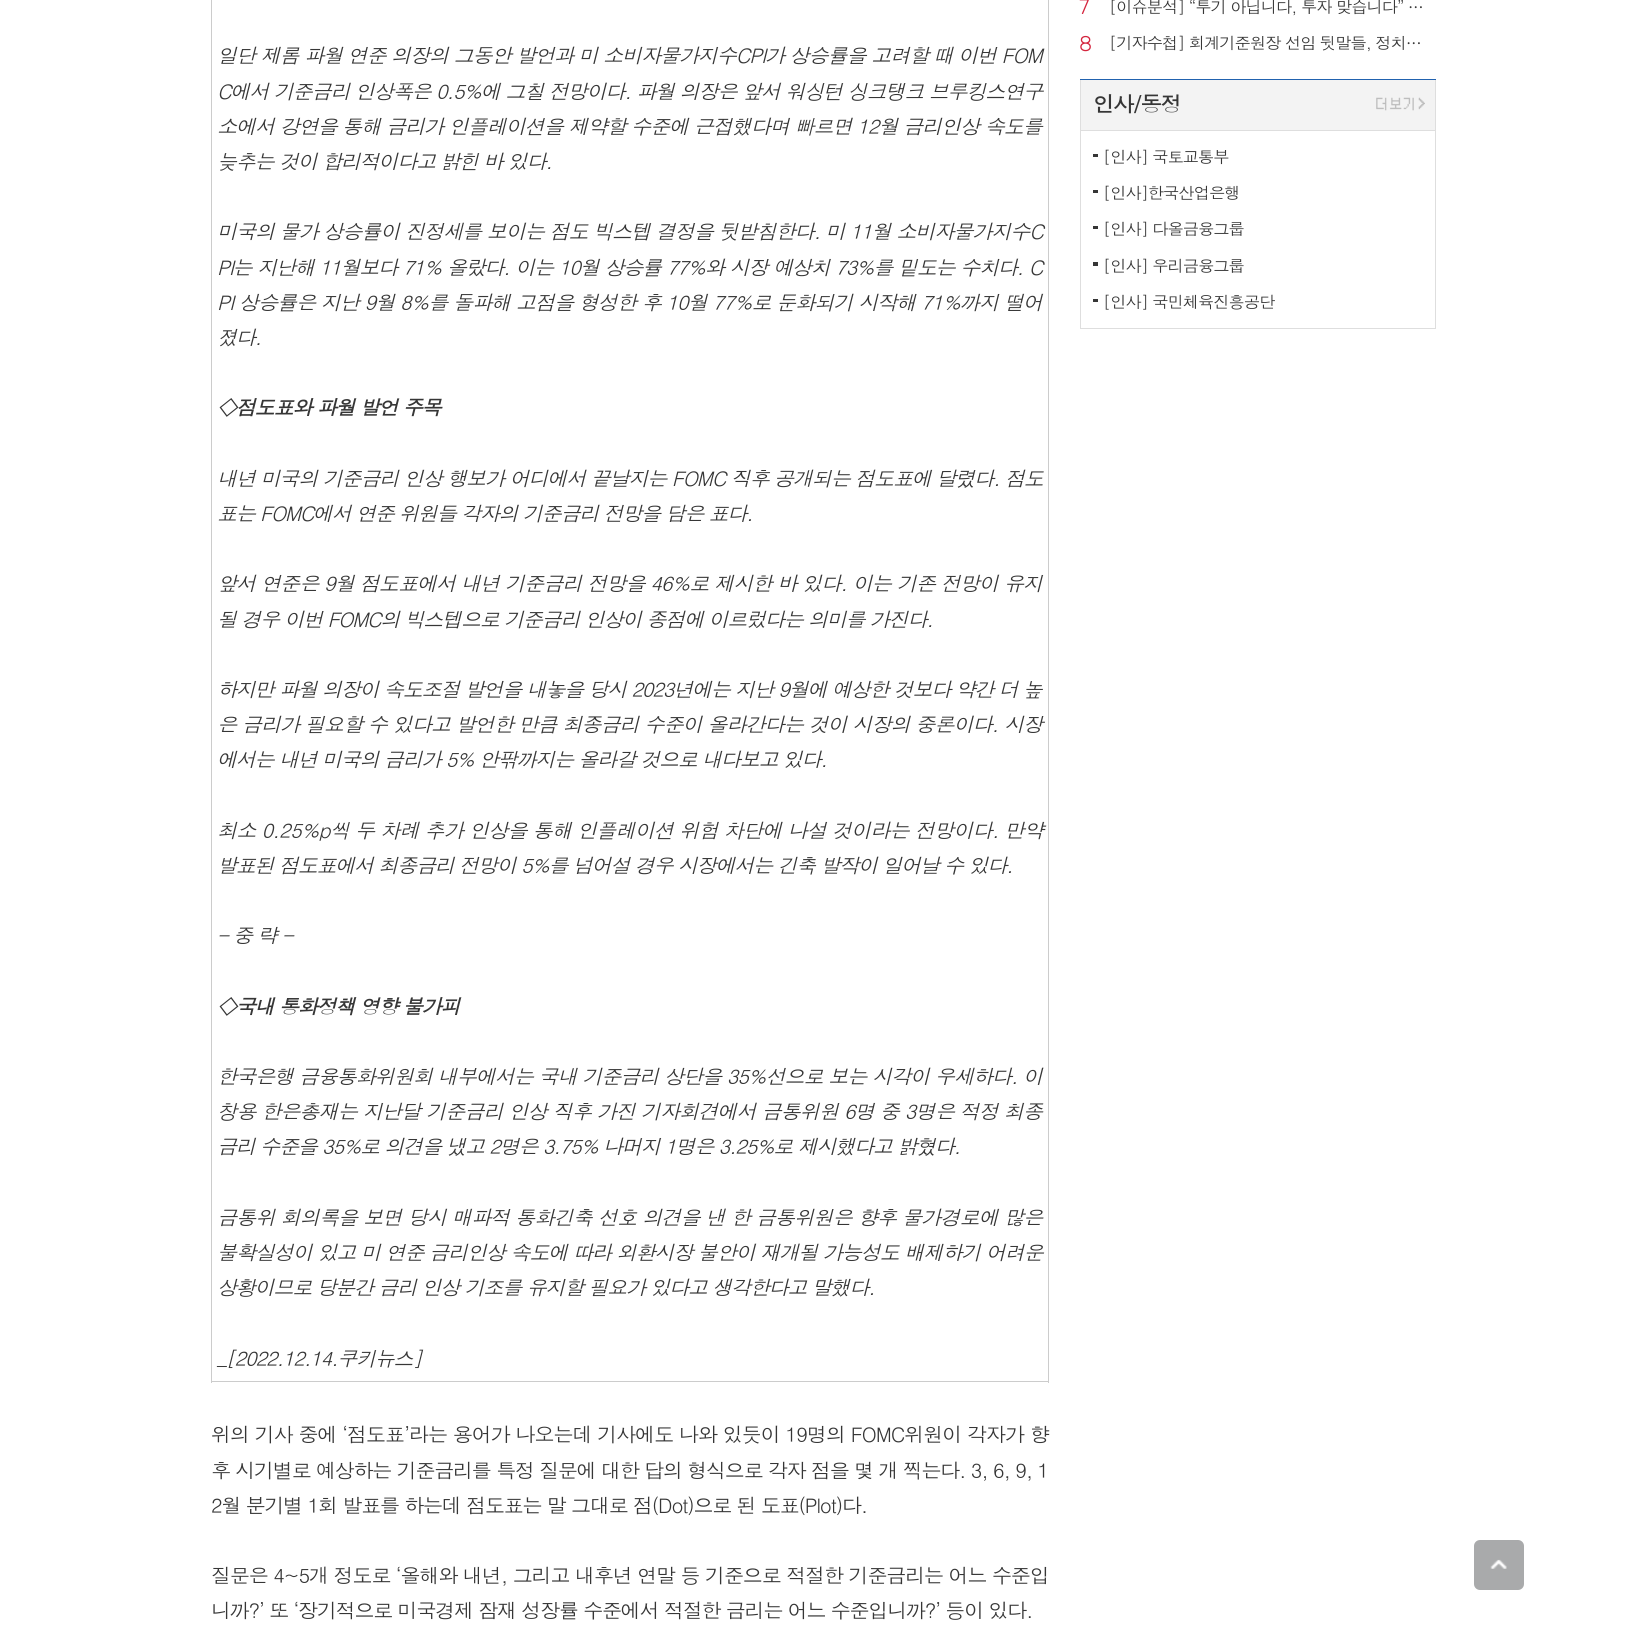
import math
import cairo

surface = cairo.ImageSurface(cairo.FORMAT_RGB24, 1646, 1627)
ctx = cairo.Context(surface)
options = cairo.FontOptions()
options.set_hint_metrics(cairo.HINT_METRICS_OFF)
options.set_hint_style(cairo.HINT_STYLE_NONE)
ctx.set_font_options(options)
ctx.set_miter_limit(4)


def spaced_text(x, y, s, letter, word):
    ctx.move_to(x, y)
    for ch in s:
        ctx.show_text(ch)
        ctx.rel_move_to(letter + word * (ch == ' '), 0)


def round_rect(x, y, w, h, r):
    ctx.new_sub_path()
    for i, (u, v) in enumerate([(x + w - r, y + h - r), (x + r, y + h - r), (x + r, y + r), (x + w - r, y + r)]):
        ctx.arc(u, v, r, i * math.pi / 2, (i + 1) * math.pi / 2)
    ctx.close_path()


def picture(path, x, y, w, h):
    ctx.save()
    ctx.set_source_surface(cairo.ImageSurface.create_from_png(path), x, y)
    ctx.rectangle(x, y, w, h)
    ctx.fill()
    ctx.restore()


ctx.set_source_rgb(1, 1, 1)
ctx.paint()
ctx.set_source_rgb(0.8, 0.8, 0.8)
ctx.rectangle(1048, 0, 1, 1383)
ctx.fill()
ctx.rectangle(211, 1381, 838, 1)
ctx.fill()
ctx.rectangle(211, 0, 1, 1383)
ctx.fill()
ctx.select_font_face("Dotum", cairo.FONT_SLANT_ITALIC)
ctx.set_font_size(20)
ctx.set_source_rgb(0.212, 0.212, 0.212)
spaced_text(217, 63, "일단 제롬 파월 연준 의장의 그동안 발언과 미 소비자물가지수CPI가 상승률을 고려할 때 이번 FOM", -1.05, 0)
spaced_text(217, 99, "C에서 기준금리 인상폭은 0.5%에 그칠 전망이다. 파월 의장은 앞서 워싱턴 싱크탱크 브루킹스연구", -1.1, 0)
spaced_text(217, 134, "소에서 강연을 통해 금리가 인플레이션을 제약할 수준에 근접했다며 빠르면 12월 금리인상 속도를", -1, 0)
spaced_text(217, 169, "늦추는 것이 합리적이다고 밝힌 바 있다.", -1.2, 0)
spaced_text(217, 239, "미국의 물가 상승률이 진정세를 보이는 점도 빅스텝 결정을 뒷받침한다. 미 11월 소비자물가지수C", -1, 0)
spaced_text(217, 275, "PI는 지난해 11월보다 71% 올랐다. 이는 10월 상승률 77%와 시장 예상치 73%를 밑도는 수치다. C", -1.2, 0.4)
spaced_text(217, 310, "PI 상승률은 지난 9월 8%를 돌파해 고점을 형성한 후 10월 77%로 둔화되기 시작해 71%까지 떨어", -0.95, 0)
spaced_text(217, 345, "졌다.", -1.2, 0)
ctx.select_font_face("Dotum", cairo.FONT_SLANT_ITALIC, cairo.FONT_WEIGHT_BOLD)
spaced_text(217, 415, "◇점도표와 파월 발언 주목", -1.2, 0)
ctx.select_font_face("Dotum", cairo.FONT_SLANT_ITALIC)
spaced_text(217, 486, "내년 미국의 기준금리 인상 행보가 어디에서 끝날지는 FOMC 직후 공개되는 점도표에 달렸다. 점도", -1.1, 0)
spaced_text(217, 521, "표는 FOMC에서 연준 위원들 각자의 기준금리 전망을 담은 표다.", -1.2, 0)
spaced_text(217, 591, "앞서 연준은 9월 점도표에서 내년 기준금리 전망을 46%로 제시한 바 있다. 이는 기존 전망이 유지", -0.9, 0)
spaced_text(217, 627, "될 경우 이번 FOMC의 빅스텝으로 기준금리 인상이 종점에 이르렀다는 의미를 가진다.", -1.2, 0)
spaced_text(217, 697, "하지만 파월 의장이 속도조절 발언을 내놓을 당시 2023년에는 지난 9월에 예상한 것보다 약간 더 높", -1.2, 0)
spaced_text(217, 732, "은 금리가 필요할 수 있다고 발언한 만큼 최종금리 수준이 올라간다는 것이 시장의 중론이다. 시장", -0.93, 0)
spaced_text(217, 767, "에서는 내년 미국의 금리가 5% 안팎까지는 올라갈 것으로 내다보고 있다.", -1.2, 0)
spaced_text(217, 838, "최소 0.25%p씩 두 차례 추가 인상을 통해 인플레이션 위험 차단에 나설 것이라는 전망이다. 만약", -0.75, 0)
spaced_text(217, 873, "발표된 점도표에서 최종금리 전망이 5%를 넘어설 경우 시장에서는 긴축 발작이 일어날 수 있다.", -1.2, 0)
spaced_text(217, 943, "- 중 략 -", -1.2, 0)
ctx.select_font_face("Dotum", cairo.FONT_SLANT_ITALIC, cairo.FONT_WEIGHT_BOLD)
spaced_text(217, 1014, "◇국내 통화정책 영향 불가피", -1.2, 0)
ctx.select_font_face("Dotum", cairo.FONT_SLANT_ITALIC)
spaced_text(217, 1084, "한국은행 금융통화위원회 내부에서는 국내 기준금리 상단을 35%선으로 보는 시각이 우세하다. 이", -0.98, 0)
spaced_text(217, 1119, "창용 한은총재는 지난달 기준금리 인상 직후 가진 기자회견에서 금통위원 6명 중 3명은 적정 최종", -0.85, 0)
spaced_text(217, 1154, "금리 수준을 35%로 의견을 냈고 2명은 3.75% 나머지 1명은 3.25%로 제시했다고 밝혔다.", -1.2, 0)
spaced_text(217, 1225, "금통위 회의록을 보면 당시 매파적 통화긴축 선호 의견을 낸 한 금통위원은 향후 물가경로에 많은", -0.8, 0)
spaced_text(217, 1260, "불확실성이 있고 미 연준 금리인상 속도에 따라 외환시장 불안이 재개될 가능성도 배제하기 어려운", -1.05, 0)
spaced_text(217, 1295, "상황이므로 당분간 금리 인상 기조를 유지할 필요가 있다고 생각한다고 말했다.", -1.2, 0)
spaced_text(217, 1366, "_[2022.12.14.쿠키뉴스]", -1.2, 0)
ctx.select_font_face("Dotum")
spaced_text(211, 1442, "위의 기사 중에 ‘점도표’라는 용어가 나오는데 기사에도 나와 있듯이 19명의 FOMC위원이 각자가 향", -0.98, 0)
spaced_text(211, 1478, "후 시기별로 예상하는 기준금리를 특정 질문에 대한 답의 형식으로 각자 점을 몇 개 찍는다. 3, 6, 9, 1", -1.2, 0)
spaced_text(211, 1513, "2월 분기별 1회 발표를 하는데 점도표는 말 그대로 점(Dot)으로 된 도표(Plot)다.", -1.2, 0)
spaced_text(211, 1583, "질문은 4~5개 정도로 ‘올해와 내년, 그리고 내후년 연말 등 기준으로 적절한 기준금리는 어느 수준입", -1.1, 0)
spaced_text(211, 1618, "니까?’ 또 ‘장기적으로 미국경제 잠재 성장률 수준에서 적절한 금리는 어느 수준입니까?’ 등이 있다.", -1.2, 0)
ctx.select_font_face("Rubik Light")
ctx.set_font_size(21.25)
ctx.set_source_rgb(0.831, 0.145, 0.243)
spaced_text(1079, 14, "7", -1.25, 0)
ctx.select_font_face("Dotum")
ctx.set_font_size(16.25)
ctx.set_source_rgb(0.212, 0.212, 0.212)
spaced_text(1109, 13, "[이슈분석] “투기 아닙니다, 투자 맞습니다” …", -0.98, 0)
ctx.select_font_face("Rubik Light")
ctx.set_font_size(21.25)
ctx.set_source_rgb(0.831, 0.145, 0.243)
spaced_text(1079, 51, "8", -1.25, 0)
ctx.select_font_face("Dotum")
ctx.set_font_size(16.25)
ctx.set_source_rgb(0.212, 0.212, 0.212)
spaced_text(1109, 49, "[기자수첩] 회계기준원장 선임 뒷말들, 정치…", -0.98, 0)
ctx.set_source_rgb(0.953, 0.953, 0.953)
ctx.rectangle(1081, 80, 354, 50)
ctx.fill()
ctx.set_source_rgb(0.871, 0.871, 0.871)
ctx.rectangle(1435, 79, 1, 52)
ctx.fill()
ctx.rectangle(1080, 79, 1, 52)
ctx.fill()
ctx.set_source_rgb(0.129, 0.384, 0.686)
ctx.rectangle(1080, 79, 356, 1)
ctx.fill()
ctx.select_font_face("Dotum", cairo.FONT_SLANT_NORMAL, cairo.FONT_WEIGHT_BOLD)
ctx.set_font_size(21.25)
ctx.set_source_rgb(0.212, 0.212, 0.212)
spaced_text(1093, 112, "인사/동정", -1.25, 0)
picture("img1.png", 1376, 97, 49, 14)
ctx.rectangle(1080.5, 130.5, 355, 198)
ctx.set_source_rgb(0.871, 0.871, 0.871)
ctx.set_line_width(1)
ctx.stroke()
ctx.set_source_rgb(0.212, 0.212, 0.212)
ctx.rectangle(1093, 154, 5, 3)
ctx.fill()
ctx.select_font_face("Dotum")
ctx.set_font_size(16.25)
spaced_text(1103, 163, "[인사] 국토교통부", -0.98, 0)
ctx.rectangle(1093, 190, 5, 3)
ctx.fill()
spaced_text(1103, 199, "[인사]한국산업은행", -0.98, 0)
ctx.rectangle(1093, 226, 5, 3)
ctx.fill()
spaced_text(1103, 235, "[인사] 다올금융그룹", -0.98, 0)
ctx.rectangle(1093, 262, 5, 4)
ctx.fill()
spaced_text(1103, 272, "[인사] 우리금융그룹", -0.98, 0)
ctx.rectangle(1093, 299, 5, 3)
ctx.fill()
spaced_text(1103, 308, "[인사] 국민체육진흥공단", -0.98, 0)
ctx.set_source_rgb(0.663, 0.667, 0.671)
round_rect(1474, 1540, 50, 50, 6)
ctx.fill()
picture("img2.png", 1490, 1559, 17, 10)
surface.write_to_png("page.png")
